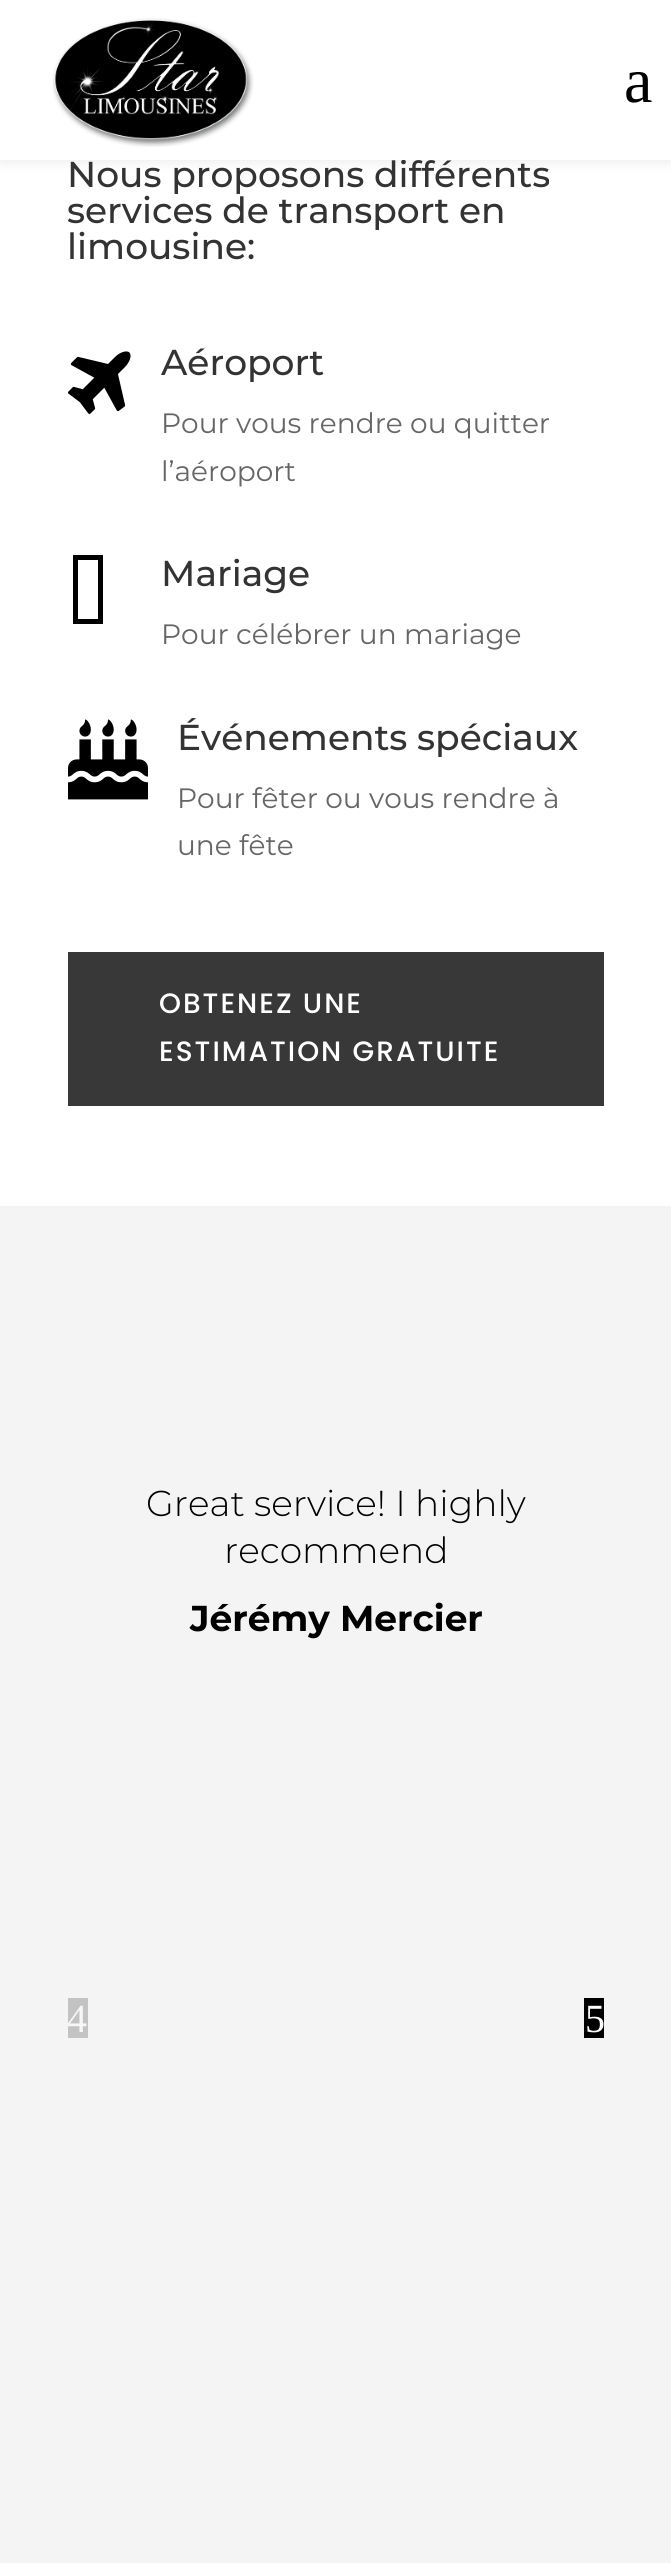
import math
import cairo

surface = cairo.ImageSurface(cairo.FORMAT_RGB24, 671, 2563)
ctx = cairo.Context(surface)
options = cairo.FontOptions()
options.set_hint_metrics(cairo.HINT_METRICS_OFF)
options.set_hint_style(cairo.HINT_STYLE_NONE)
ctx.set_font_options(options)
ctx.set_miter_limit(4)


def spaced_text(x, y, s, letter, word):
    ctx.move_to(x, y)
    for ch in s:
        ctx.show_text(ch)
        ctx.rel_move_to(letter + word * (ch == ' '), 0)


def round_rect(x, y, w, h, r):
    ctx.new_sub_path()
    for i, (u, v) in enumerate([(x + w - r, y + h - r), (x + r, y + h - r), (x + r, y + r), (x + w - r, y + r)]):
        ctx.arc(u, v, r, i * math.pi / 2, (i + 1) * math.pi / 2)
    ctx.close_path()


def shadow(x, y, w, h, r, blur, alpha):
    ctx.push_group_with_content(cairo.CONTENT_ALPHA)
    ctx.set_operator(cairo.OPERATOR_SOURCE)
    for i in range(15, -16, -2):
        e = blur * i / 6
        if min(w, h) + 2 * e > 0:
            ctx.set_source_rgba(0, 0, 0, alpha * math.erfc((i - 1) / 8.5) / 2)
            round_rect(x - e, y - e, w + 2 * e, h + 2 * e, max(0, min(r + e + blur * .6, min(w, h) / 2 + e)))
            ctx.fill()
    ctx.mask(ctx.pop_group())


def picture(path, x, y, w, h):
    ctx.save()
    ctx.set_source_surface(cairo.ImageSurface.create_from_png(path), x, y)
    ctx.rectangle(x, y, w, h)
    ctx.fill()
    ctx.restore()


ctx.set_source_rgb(1, 1, 1)
ctx.paint()
ctx.set_source_rgb(0, 0, 0)
shadow(0, 0, 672, 160, 0, 7, 0.1)
ctx.select_font_face("Montserrat Medium")
ctx.set_font_size(36)
ctx.set_source_rgb(0.2, 0.2, 0.2)
ctx.move_to(67, 187)
ctx.show_text("Nous proposons différents")
ctx.set_source_rgb(1, 1, 1)
ctx.rectangle(0, 0, 671, 160)
ctx.fill()
picture("img1.png", 52, 18, 202, 129)
ctx.select_font_face("Liberation Serif")
ctx.set_font_size(64)
ctx.set_source_rgb(0, 0, 0)
ctx.move_to(624, 102)
ctx.show_text("a")
ctx.select_font_face("Montserrat Medium")
ctx.set_font_size(36)
ctx.set_source_rgb(0.2, 0.2, 0.2)
ctx.move_to(67, 223)
ctx.show_text("services de transport en")
ctx.move_to(67, 259)
ctx.show_text("limousine:")
picture("img2.png", 68, 351, 63, 63)
ctx.move_to(161, 375)
ctx.show_text("Aéroport")
ctx.select_font_face("Montserrat")
ctx.set_font_size(28)
ctx.set_source_rgb(0.4, 0.4, 0.4)
ctx.move_to(161, 433)
ctx.show_text("Pour vous rendre ou quitter")
ctx.move_to(161, 481)
ctx.show_text("l’aéroport")
ctx.set_source_rgb(0, 0, 0)
ctx.new_path()
ctx.move_to(78, 619)
ctx.line_to(78, 560)
ctx.line_to(98, 560)
ctx.line_to(98, 619)
ctx.close_path()
ctx.move_to(73, 624)
ctx.line_to(103, 624)
ctx.line_to(103, 555)
ctx.line_to(73, 555)
ctx.close_path()
ctx.fill()
ctx.select_font_face("Montserrat Medium")
ctx.set_font_size(36)
ctx.set_source_rgb(0.2, 0.2, 0.2)
ctx.move_to(161, 586)
ctx.show_text("Mariage")
ctx.select_font_face("Montserrat")
ctx.set_font_size(28)
ctx.set_source_rgb(0.4, 0.4, 0.4)
ctx.move_to(161, 644)
ctx.show_text("Pour célébrer un mariage")
picture("img3.png", 68, 719, 80, 81)
ctx.select_font_face("Montserrat Medium")
ctx.set_font_size(36)
ctx.set_source_rgb(0.2, 0.2, 0.2)
ctx.move_to(177, 750)
ctx.show_text("Événements spéciaux")
ctx.select_font_face("Montserrat")
ctx.set_font_size(28)
ctx.set_source_rgb(0.4, 0.4, 0.4)
ctx.move_to(177, 808)
ctx.show_text("Pour fêter ou vous rendre à")
ctx.move_to(177, 855)
ctx.show_text("une fête")
ctx.set_source_rgb(0.22, 0.22, 0.22)
ctx.rectangle(68, 952, 536, 154)
ctx.fill()
ctx.select_font_face("Poppins Medium")
ctx.set_source_rgb(1, 1, 1)
spaced_text(159, 1013, "OBTENEZ UNE", 2, 0)
spaced_text(159, 1061, "ESTIMATION GRATUITE", 2, 0)
ctx.set_source_rgb(0.957, 0.957, 0.957)
ctx.rectangle(0, 1206, 671, 1357)
ctx.fill()
ctx.select_font_face("Montserrat Light")
ctx.set_font_size(36)
ctx.set_source_rgb(0, 0, 0)
ctx.move_to(146, 1516)
ctx.show_text("Great service! I highly")
ctx.move_to(224, 1563)
ctx.show_text("recommend")
ctx.select_font_face("Montserrat", cairo.FONT_SLANT_NORMAL, cairo.FONT_WEIGHT_BOLD)
ctx.move_to(190, 1631)
ctx.show_text("Jérémy Mercier")
ctx.set_source_rgb(0.765, 0.765, 0.765)
ctx.rectangle(68, 1998, 20, 40)
ctx.fill()
ctx.select_font_face("Liberation Serif")
ctx.set_font_size(40)
ctx.set_source_rgb(0.965, 0.965, 0.965)
ctx.move_to(67, 2032)
ctx.show_text("4")
ctx.set_source_rgb(0, 0, 0)
ctx.rectangle(584, 1998, 20, 40)
ctx.fill()
ctx.set_source_rgb(1, 1, 1)
ctx.move_to(585, 2032)
ctx.show_text("5")
surface.write_to_png("page.png")
